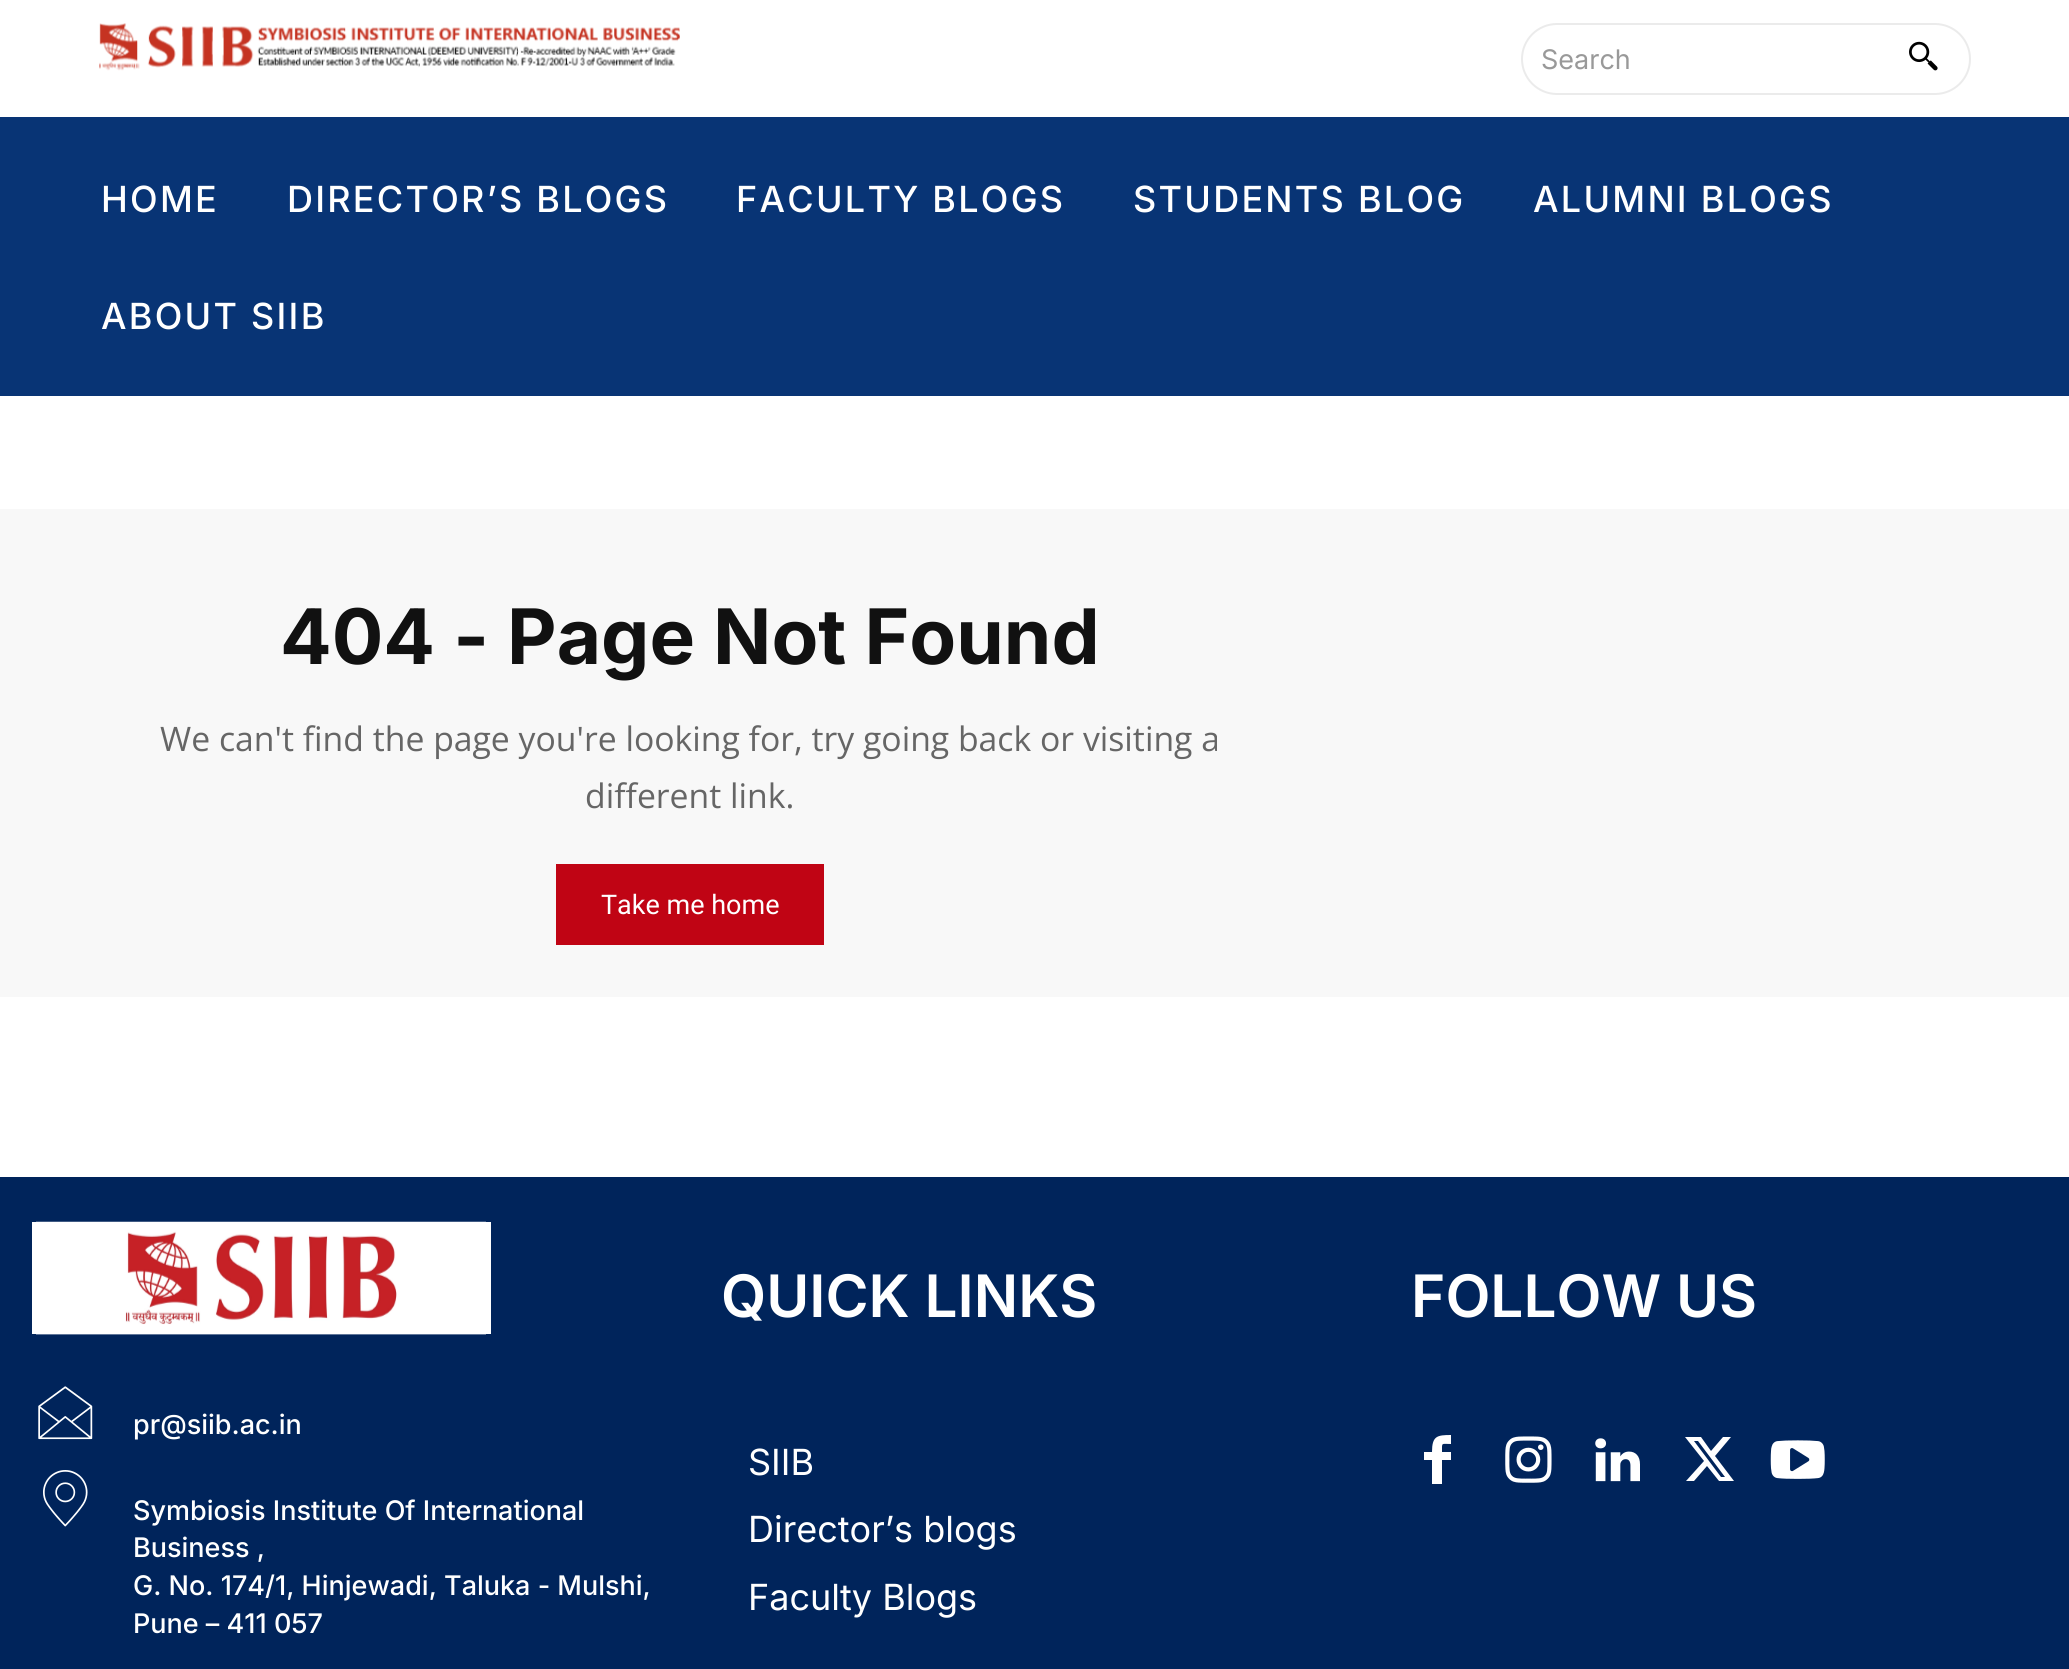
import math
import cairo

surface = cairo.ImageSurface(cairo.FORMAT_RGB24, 2069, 1669)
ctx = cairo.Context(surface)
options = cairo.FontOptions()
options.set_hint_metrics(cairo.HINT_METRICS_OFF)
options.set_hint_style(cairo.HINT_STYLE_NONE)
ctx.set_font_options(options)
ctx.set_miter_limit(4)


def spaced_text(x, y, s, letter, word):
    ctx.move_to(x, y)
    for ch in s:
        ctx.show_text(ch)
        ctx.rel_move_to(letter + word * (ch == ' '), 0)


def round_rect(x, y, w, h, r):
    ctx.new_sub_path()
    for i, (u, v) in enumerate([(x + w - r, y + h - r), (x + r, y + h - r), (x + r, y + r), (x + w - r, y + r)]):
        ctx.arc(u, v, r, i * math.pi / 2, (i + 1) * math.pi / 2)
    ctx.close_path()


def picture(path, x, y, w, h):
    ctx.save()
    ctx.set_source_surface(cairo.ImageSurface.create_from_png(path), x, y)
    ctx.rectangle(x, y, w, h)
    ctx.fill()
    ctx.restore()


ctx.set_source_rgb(1, 1, 1)
ctx.paint()
picture("img1.png", 99, 23, 581, 48)
round_rect(1522, 24, 448, 70, 35)
ctx.set_source_rgb(0.918, 0.918, 0.918)
ctx.stroke()
ctx.select_font_face("Inter")
ctx.set_font_size(27)
ctx.set_source_rgb(0.6, 0.6, 0.6)
ctx.move_to(1541, 69)
ctx.show_text("Search")
picture("img2.png", 1909, 41, 29, 30)
ctx.set_source_rgb(0.035, 0.204, 0.459)
ctx.rectangle(0, 117, 2069, 279)
ctx.fill()
ctx.select_font_face("Inter Medium")
ctx.set_font_size(36)
ctx.set_source_rgb(1, 1, 1)
spaced_text(101, 212, "HOME", 2.25, 0)
spaced_text(287, 212, "DIRECTOR’S BLOGS", 2.25, 0)
spaced_text(736, 212, "FACULTY BLOGS", 2.25, 0)
spaced_text(1133, 212, "STUDENTS BLOG", 2.25, 0)
spaced_text(1533, 212, "ALUMNI BLOGS", 2.25, 0)
spaced_text(101, 329, "ABOUT SIIB", 2.25, 0)
ctx.set_source_rgb(0.969, 0.969, 0.969)
ctx.rectangle(0, 509, 2069, 488)
ctx.fill()
ctx.select_font_face("Inter", cairo.FONT_SLANT_NORMAL, cairo.FONT_WEIGHT_BOLD)
ctx.set_font_size(76.5)
ctx.set_source_rgb(0.067, 0.067, 0.067)
ctx.move_to(280, 664)
ctx.show_text("404 - Page Not Found")
ctx.select_font_face("Open Sans")
ctx.set_font_size(33.75)
ctx.set_source_rgb(0.4, 0.4, 0.4)
ctx.move_to(160, 751)
ctx.show_text("We can't find the page you're looking for, try going back or visiting a")
ctx.move_to(585, 808)
ctx.show_text("different link.")
ctx.set_source_rgb(0.753, 0.016, 0.082)
ctx.rectangle(556, 864, 268, 81)
ctx.fill()
ctx.select_font_face("Roboto")
ctx.set_font_size(27)
ctx.set_source_rgb(1, 1, 1)
ctx.move_to(601, 914)
ctx.show_text("Take me home")
ctx.set_source_rgb(0, 0.141, 0.357)
ctx.rectangle(0, 1177, 2069, 492)
ctx.fill()
ctx.select_font_face("Inter SemiBold")
ctx.set_font_size(58.5)
ctx.set_source_rgb(1, 1, 1)
ctx.move_to(721, 1317)
ctx.show_text("QUICK LINKS")
ctx.select_font_face("Inter")
ctx.set_font_size(36)
ctx.move_to(748, 1475)
ctx.show_text("SIIB")
ctx.move_to(748, 1542)
ctx.show_text("Director’s blogs")
ctx.move_to(748, 1610)
ctx.show_text("Faculty Blogs")
ctx.select_font_face("Inter SemiBold")
ctx.set_font_size(58.5)
ctx.move_to(1411, 1317)
ctx.show_text("FOLLOW US")
ctx.new_path()
ctx.move_to(1451, 1444)
ctx.curve_to(1441, 1444, 1442, 1442, 1442, 1452)
ctx.line_to(1451, 1452)
ctx.line_to(1451, 1460)
ctx.line_to(1442, 1460)
ctx.line_to(1442, 1484)
ctx.line_to(1432, 1484)
ctx.line_to(1432, 1460)
ctx.line_to(1424, 1460)
ctx.line_to(1424, 1452)
ctx.line_to(1432, 1452)
ctx.curve_to(1432, 1436, 1437, 1435, 1451, 1435)
ctx.close_path()
ctx.fill()
picture("img3.png", 1505, 1436, 47, 47)
picture("img4.png", 1595, 1438, 45, 44)
ctx.new_path()
ctx.move_to(1723, 1437)
ctx.line_to(1731, 1437)
ctx.line_to(1715, 1456)
ctx.line_to(1734, 1481)
ctx.line_to(1719, 1481)
ctx.line_to(1707, 1466)
ctx.line_to(1694, 1481)
ctx.line_to(1686, 1481)
ctx.line_to(1704, 1461)
ctx.line_to(1685, 1437)
ctx.line_to(1701, 1437)
ctx.line_to(1711, 1451)
ctx.close_path()
ctx.move_to(1721, 1477)
ctx.line_to(1725, 1477)
ctx.line_to(1698, 1441)
ctx.line_to(1694, 1441)
ctx.close_path()
ctx.fill()
picture("img5.png", 1770, 1440, 55, 39)
ctx.rectangle(32, 1222, 459, 112)
ctx.fill()
picture("img6.png", 36, 1221, 450, 114)
picture("img7.png", 38, 1386, 55, 54)
ctx.select_font_face("Inter Medium")
ctx.set_font_size(27)
ctx.move_to(133, 1434)
ctx.show_text("pr@siib.ac.in")
picture("img8.png", 43, 1470, 45, 57)
ctx.move_to(133, 1520)
ctx.show_text("Symbiosis Institute Of International")
ctx.move_to(133, 1557)
ctx.show_text("Business ,")
ctx.move_to(133, 1595)
ctx.show_text("G. No. 174/1, Hinjewadi, Taluka - Mulshi,")
ctx.move_to(133, 1633)
ctx.show_text("Pune – 411 057")
surface.write_to_png("page.png")
